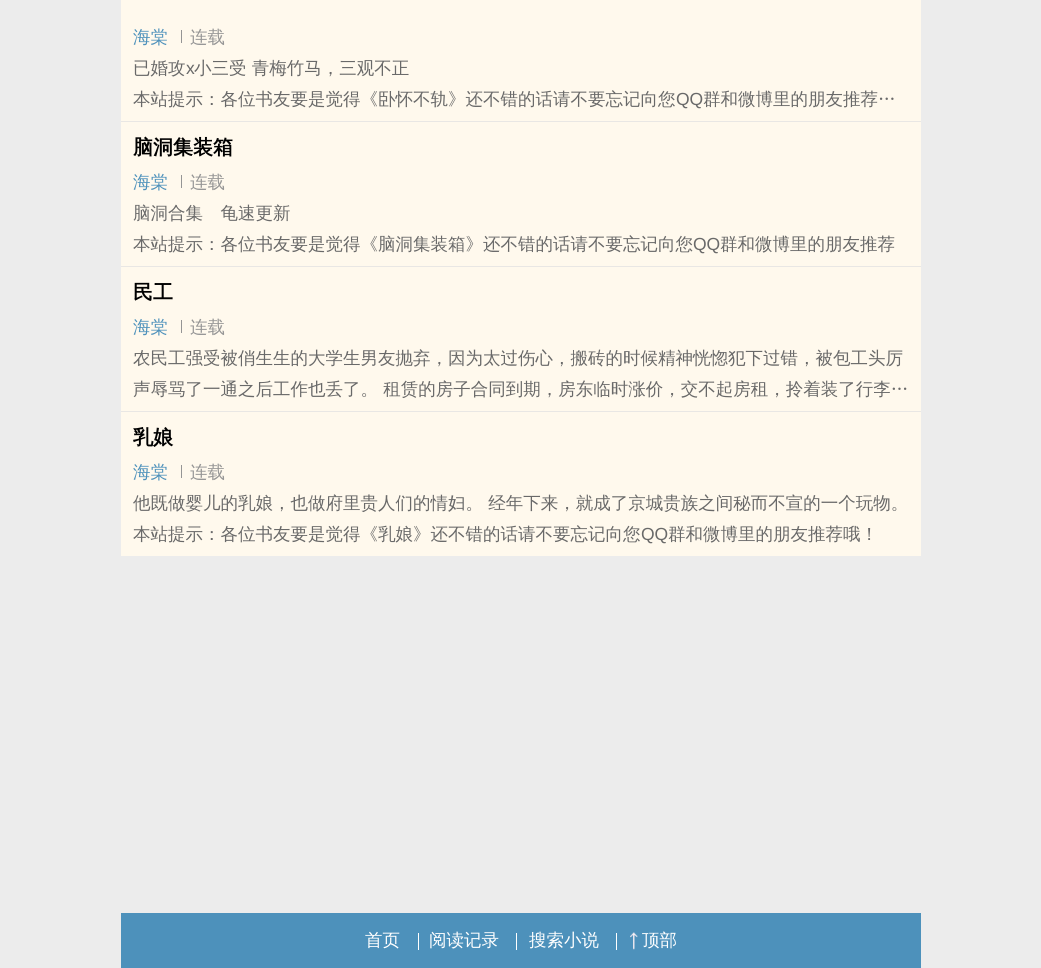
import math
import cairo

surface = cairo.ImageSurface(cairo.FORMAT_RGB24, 1041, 968)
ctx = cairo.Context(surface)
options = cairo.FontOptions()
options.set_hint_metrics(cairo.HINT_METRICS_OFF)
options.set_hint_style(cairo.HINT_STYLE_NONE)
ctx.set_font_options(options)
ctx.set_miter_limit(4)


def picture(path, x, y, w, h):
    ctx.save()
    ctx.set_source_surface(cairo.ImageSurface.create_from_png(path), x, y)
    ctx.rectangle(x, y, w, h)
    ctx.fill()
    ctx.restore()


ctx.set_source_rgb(0.922, 0.922, 0.922)
ctx.paint()
ctx.set_source_rgb(1, 0.973, 0.929)
ctx.rectangle(121, 0, 800, 121)
ctx.fill()
ctx.select_font_face("WenQuanYi Zen Hei Medium")
ctx.set_font_size(17.5)
ctx.set_source_rgb(0.302, 0.569, 0.733)
ctx.move_to(133, 43)
ctx.show_text("海棠")
ctx.set_source_rgb(0.584, 0.584, 0.584)
ctx.rectangle(181, 30, 1, 13)
ctx.fill()
ctx.move_to(190, 43)
ctx.show_text("连载")
ctx.set_source_rgb(0.412, 0.412, 0.412)
ctx.move_to(133, 74)
ctx.show_text("已婚攻")
ctx.select_font_face("Liberation Sans")
ctx.move_to(186, 74)
ctx.show_text("x")
ctx.select_font_face("WenQuanYi Zen Hei Medium")
ctx.move_to(194, 74)
ctx.show_text("小三受 青梅竹马，三观不正")
ctx.move_to(133, 105)
ctx.show_text("本站提示：各位书友要是觉得《卧怀不轨》还不错的话请不要忘记向您")
ctx.select_font_face("Liberation Sans")
ctx.move_to(676, 105)
ctx.show_text("QQ")
ctx.select_font_face("WenQuanYi Zen Hei Medium")
ctx.move_to(703, 105)
ctx.show_text("群和微博里的朋友推荐…")
ctx.set_source_rgb(1, 0.973, 0.929)
ctx.rectangle(121, 122, 800, 144)
ctx.fill()
ctx.set_source_rgb(0.914, 0.906, 0.894)
ctx.rectangle(121, 121, 800, 1)
ctx.fill()
ctx.select_font_face("WenQuanYi Zen Hei", cairo.FONT_SLANT_NORMAL, cairo.FONT_WEIGHT_BOLD)
ctx.set_font_size(20)
ctx.set_source_rgb(0, 0, 0)
ctx.move_to(133, 154)
ctx.show_text("脑洞集装箱")
ctx.select_font_face("WenQuanYi Zen Hei Medium")
ctx.set_font_size(17.5)
ctx.set_source_rgb(0.302, 0.569, 0.733)
ctx.move_to(133, 188)
ctx.show_text("海棠")
ctx.set_source_rgb(0.584, 0.584, 0.584)
ctx.rectangle(181, 175, 1, 13)
ctx.fill()
ctx.move_to(190, 188)
ctx.show_text("连载")
ctx.set_source_rgb(0.412, 0.412, 0.412)
ctx.move_to(133, 219)
ctx.show_text("脑洞合集　龟速更新")
ctx.move_to(133, 250)
ctx.show_text("本站提示：各位书友要是觉得《脑洞集装箱》还不错的话请不要忘记向您")
ctx.select_font_face("Liberation Sans")
ctx.move_to(693, 250)
ctx.show_text("QQ")
ctx.select_font_face("WenQuanYi Zen Hei Medium")
ctx.move_to(720, 250)
ctx.show_text("群和微博里的朋友推荐")
ctx.set_source_rgb(1, 0.973, 0.929)
ctx.rectangle(121, 267, 800, 144)
ctx.fill()
ctx.set_source_rgb(0.914, 0.906, 0.894)
ctx.rectangle(121, 266, 800, 1)
ctx.fill()
ctx.select_font_face("WenQuanYi Zen Hei", cairo.FONT_SLANT_NORMAL, cairo.FONT_WEIGHT_BOLD)
ctx.set_font_size(20)
ctx.set_source_rgb(0, 0, 0)
ctx.move_to(133, 299)
ctx.show_text("民工")
ctx.select_font_face("WenQuanYi Zen Hei Medium")
ctx.set_font_size(17.5)
ctx.set_source_rgb(0.302, 0.569, 0.733)
ctx.move_to(133, 333)
ctx.show_text("海棠")
ctx.set_source_rgb(0.584, 0.584, 0.584)
ctx.rectangle(181, 320, 1, 13)
ctx.fill()
ctx.move_to(190, 333)
ctx.show_text("连载")
ctx.set_source_rgb(0.412, 0.412, 0.412)
ctx.move_to(133, 364)
ctx.show_text("农民工强受被俏生生的大学生男友抛弃，因为太过伤心，搬砖的时候精神恍惚犯下过错，被包工头厉")
ctx.move_to(133, 395)
ctx.show_text("声辱骂了一通之后工作也丢了。 租赁的房子合同到期，房东临时涨价，交不起房租，拎着装了行李…")
ctx.set_source_rgb(1, 0.973, 0.929)
ctx.rectangle(121, 412, 800, 144)
ctx.fill()
ctx.set_source_rgb(0.914, 0.906, 0.894)
ctx.rectangle(121, 411, 800, 1)
ctx.fill()
ctx.select_font_face("WenQuanYi Zen Hei", cairo.FONT_SLANT_NORMAL, cairo.FONT_WEIGHT_BOLD)
ctx.set_font_size(20)
ctx.set_source_rgb(0, 0, 0)
ctx.move_to(133, 444)
ctx.show_text("乳娘")
ctx.select_font_face("WenQuanYi Zen Hei Medium")
ctx.set_font_size(17.5)
ctx.set_source_rgb(0.302, 0.569, 0.733)
ctx.move_to(133, 478)
ctx.show_text("海棠")
ctx.set_source_rgb(0.584, 0.584, 0.584)
ctx.rectangle(181, 465, 1, 13)
ctx.fill()
ctx.move_to(190, 478)
ctx.show_text("连载")
ctx.set_source_rgb(0.412, 0.412, 0.412)
ctx.move_to(133, 509)
ctx.show_text("他既做婴儿的乳娘，也做府里贵人们的情妇。 经年下来，就成了京城贵族之间秘而不宣的一个玩物。")
ctx.move_to(133, 540)
ctx.show_text("本站提示：各位书友要是觉得《乳娘》还不错的话请不要忘记向您")
ctx.select_font_face("Liberation Sans")
ctx.move_to(641, 540)
ctx.show_text("QQ")
ctx.select_font_face("WenQuanYi Zen Hei Medium")
ctx.move_to(668, 540)
ctx.show_text("群和微博里的朋友推荐哦！")
ctx.set_source_rgb(0.302, 0.569, 0.733)
ctx.rectangle(121, 913, 800, 55)
ctx.fill()
ctx.set_source_rgb(1, 1, 1)
ctx.move_to(365, 946)
ctx.show_text("首页")
ctx.rectangle(418, 933, 1, 17)
ctx.fill()
ctx.move_to(429, 946)
ctx.show_text("阅读记录")
ctx.rectangle(516, 933, 1, 17)
ctx.fill()
ctx.move_to(529, 946)
ctx.show_text("搜索小说")
ctx.rectangle(616, 933, 1, 17)
ctx.fill()
picture("img1.png", 630, 932, 8, 18)
ctx.move_to(642, 946)
ctx.show_text("顶部")
surface.write_to_png("page.png")
